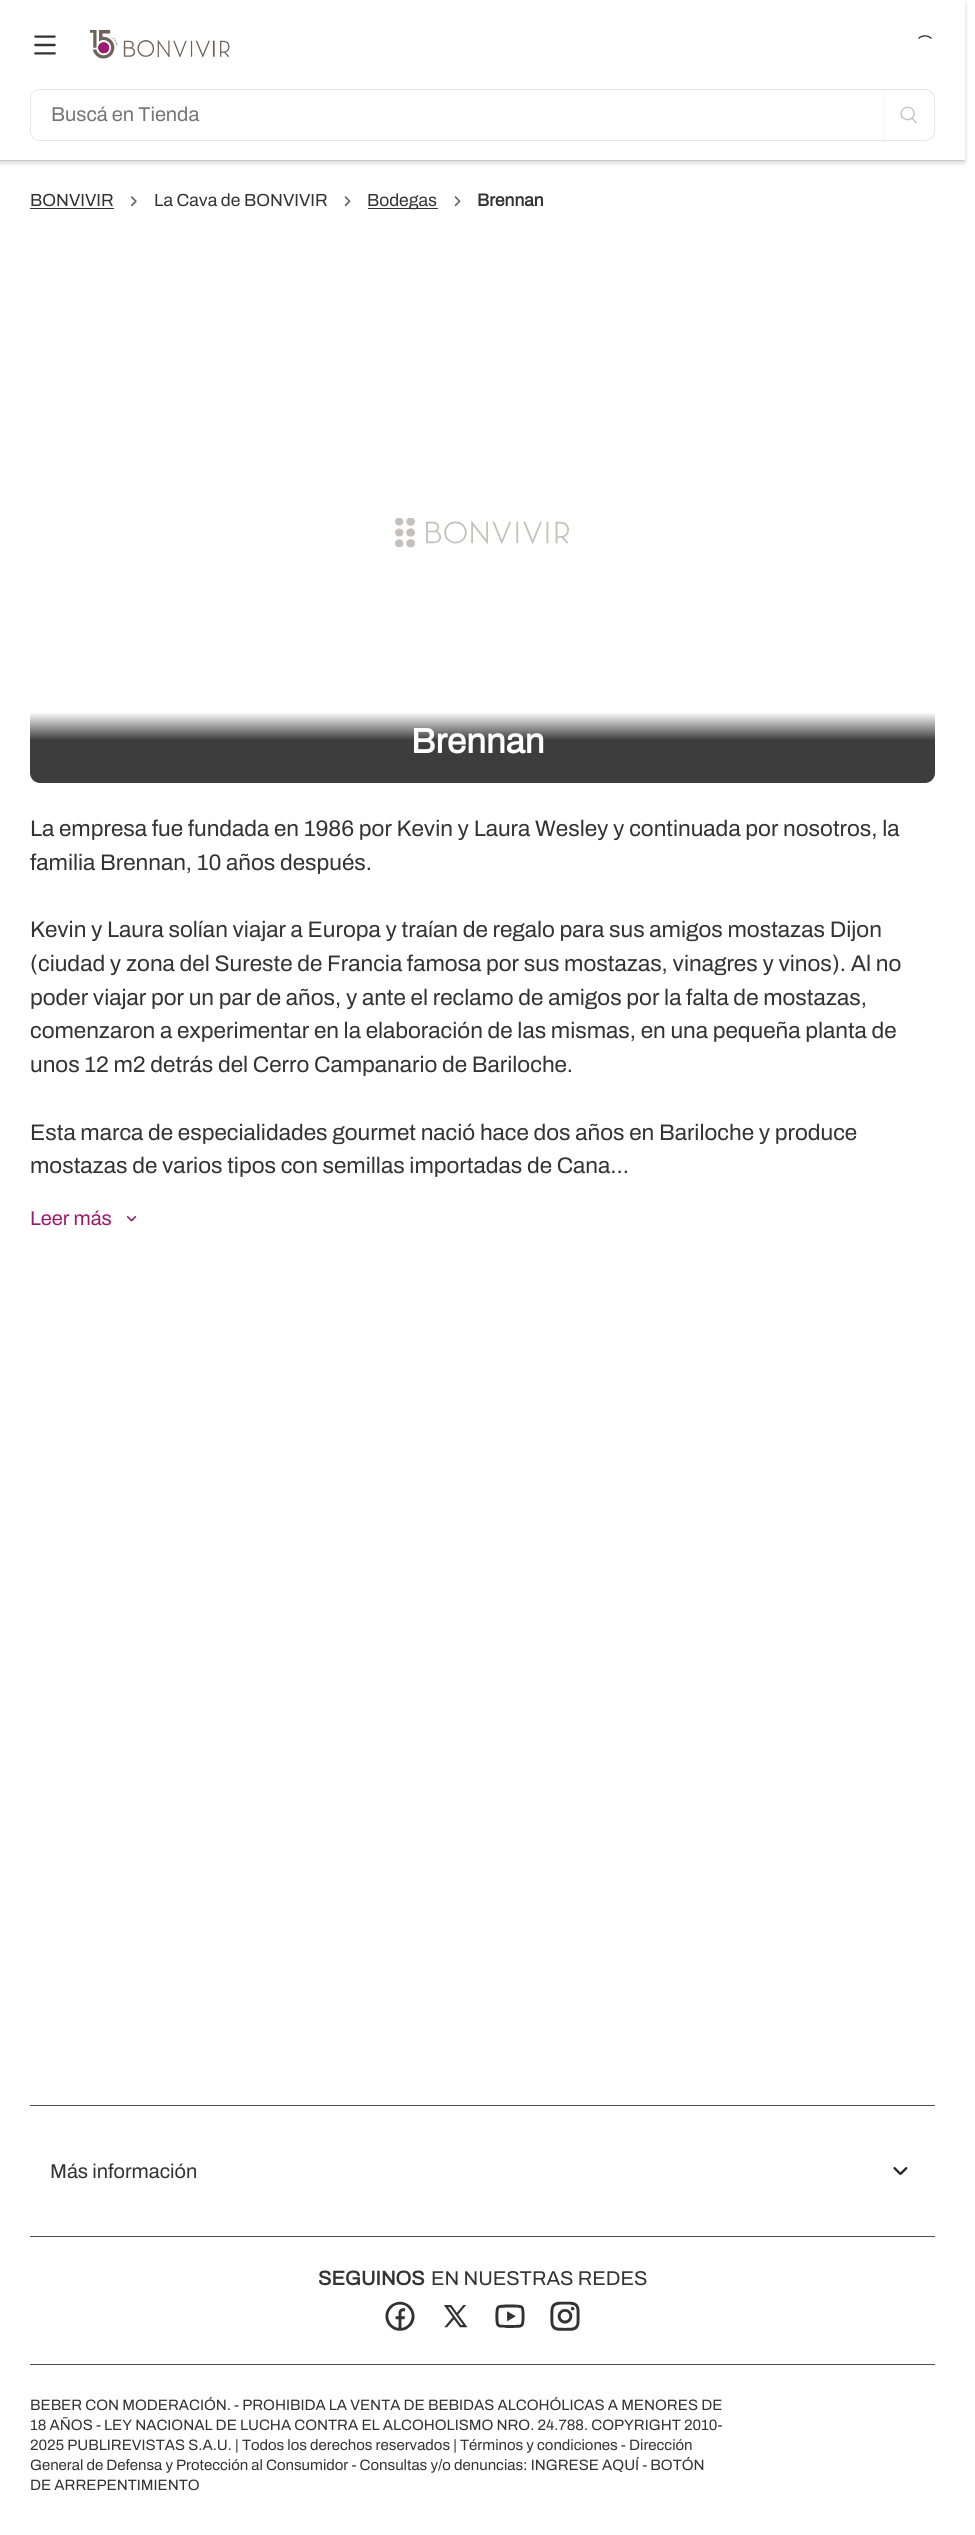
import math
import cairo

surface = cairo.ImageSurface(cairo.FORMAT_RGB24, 975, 2535)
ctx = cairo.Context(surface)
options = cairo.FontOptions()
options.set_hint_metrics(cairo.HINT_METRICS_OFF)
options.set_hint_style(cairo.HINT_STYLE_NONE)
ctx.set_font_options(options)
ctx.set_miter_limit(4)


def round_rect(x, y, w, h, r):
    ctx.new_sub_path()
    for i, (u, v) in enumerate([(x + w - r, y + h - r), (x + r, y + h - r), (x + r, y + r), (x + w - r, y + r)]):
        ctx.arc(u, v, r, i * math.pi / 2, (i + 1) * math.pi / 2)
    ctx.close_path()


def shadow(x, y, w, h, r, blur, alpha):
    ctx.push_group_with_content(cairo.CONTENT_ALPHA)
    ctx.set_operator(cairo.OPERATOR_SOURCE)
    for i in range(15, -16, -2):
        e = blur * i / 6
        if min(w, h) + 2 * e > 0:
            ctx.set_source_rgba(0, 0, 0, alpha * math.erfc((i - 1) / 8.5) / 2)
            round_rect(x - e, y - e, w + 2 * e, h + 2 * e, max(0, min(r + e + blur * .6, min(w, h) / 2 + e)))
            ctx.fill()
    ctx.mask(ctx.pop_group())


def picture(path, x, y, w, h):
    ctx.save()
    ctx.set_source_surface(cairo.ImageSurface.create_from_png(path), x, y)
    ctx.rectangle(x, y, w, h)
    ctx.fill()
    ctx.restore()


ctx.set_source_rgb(1, 1, 1)
ctx.paint()
ctx.set_source_rgb(0.902, 0.902, 0.902)
ctx.rectangle(0, 160, 965, 1)
ctx.fill()
ctx.save()
ctx.set_fill_rule(cairo.FILL_RULE_EVEN_ODD)
ctx.new_path()
ctx.move_to(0, 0)
ctx.line_to(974, 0)
ctx.line_to(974, 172)
ctx.line_to(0, 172)
ctx.close_path()
ctx.move_to(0, 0)
ctx.line_to(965, 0)
ctx.line_to(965, 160)
ctx.line_to(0, 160)
ctx.close_path()
ctx.clip()
ctx.set_source_rgb(0, 0, 0)
shadow(0, 3, 965, 160, 0, 2.5, 0.16)
ctx.restore()
picture("img1.png", 34, 35, 22, 20)
picture("img2.png", 90, 30, 140, 29)
ctx.new_path()
ctx.move_to(918.5, 38.5)
ctx.curve_to(922, 35, 928, 35, 931.5, 38.5)
ctx.set_source_rgb(0.11, 0.11, 0.122)
ctx.set_line_width(1.2)
ctx.stroke()
round_rect(30.5, 89.5, 904, 51, 9.5)
ctx.set_source_rgb(0.902, 0.902, 0.902)
ctx.set_line_width(1)
ctx.stroke()
ctx.set_source_rgb(1, 1, 1)
ctx.new_path()
ctx.move_to(40, 90)
ctx.line_to(883, 90)
ctx.line_to(883, 140)
ctx.line_to(40, 140)
ctx.curve_to(35, 140, 31, 136, 31, 131)
ctx.line_to(31, 99)
ctx.curve_to(31, 94, 35, 90, 40, 90)
ctx.close_path()
ctx.fill()
ctx.select_font_face("Archivo")
ctx.set_font_size(20)
ctx.set_source_rgb(0.459, 0.459, 0.459)
ctx.move_to(51, 121)
ctx.show_text("Buscá en Tienda")
ctx.set_source_rgb(0.961, 0.961, 0.961)
ctx.rectangle(883, 90, 1, 50)
ctx.fill()
picture("img3.png", 900, 106, 17, 18)
ctx.set_font_size(17.5)
ctx.set_source_rgb(0.2, 0.2, 0.2)
ctx.move_to(30, 206)
ctx.show_text("BONVIVIR")
ctx.rectangle(30, 208, 84, 1)
ctx.fill()
picture("img4.png", 131, 196, 6, 11)
ctx.move_to(154, 206)
ctx.show_text("La Cava de BONVIVIR")
picture("img5.png", 344, 196, 7, 11)
ctx.rectangle(368, 208, 70, 1)
ctx.fill()
ctx.move_to(367, 206)
ctx.show_text("Bodegas")
picture("img5.png", 454, 196, 7, 11)
ctx.select_font_face("Archivo", cairo.FONT_SLANT_NORMAL, cairo.FONT_WEIGHT_BOLD)
ctx.move_to(477, 206)
ctx.show_text("Brennan")
picture("img6.png", 395, 518, 174, 30)
gradient = cairo.LinearGradient(483, 690, 483, 783)
gradient.add_color_stop_rgba(0.24, 1, 1, 1, 1)
gradient.add_color_stop_rgba(0.54, 0.239, 0.239, 0.239, 1)
ctx.set_source(gradient)
ctx.new_path()
ctx.move_to(30, 690)
ctx.line_to(935, 690)
ctx.line_to(935, 773)
ctx.curve_to(935, 778.5, 930.5, 783, 925, 783)
ctx.line_to(40, 783)
ctx.curve_to(34.5, 783, 30, 778.5, 30, 773)
ctx.close_path()
ctx.fill()
ctx.set_font_size(35)
ctx.set_source_rgb(0.996, 0.996, 0.996)
ctx.move_to(411, 753)
ctx.show_text("Brennan")
ctx.select_font_face("Archivo")
ctx.set_font_size(22.5)
ctx.set_source_rgb(0.2, 0.2, 0.2)
ctx.move_to(30, 836)
ctx.show_text("La empresa fue fundada en 1986 por Kevin y Laura Wesley y continuada por nosotros, la")
ctx.move_to(30, 870)
ctx.show_text("familia Brennan, 10 años después.")
ctx.move_to(30, 937)
ctx.show_text("Kevin y Laura solían viajar a Europa y traían de regalo para sus amigos mostazas Dijon")
ctx.move_to(30, 971)
ctx.show_text("(ciudad y zona del Sureste de Francia famosa por sus mostazas, vinagres y vinos). Al no")
ctx.move_to(30, 1005)
ctx.show_text("poder viajar por un par de años, y ante el reclamo de amigos por la falta de mostazas,")
ctx.move_to(30, 1038)
ctx.show_text("comenzaron a experimentar en la elaboración de las mismas, en una pequeña planta de")
ctx.move_to(30, 1072)
ctx.show_text("unos 12 m2 detrás del Cerro Campanario de Bariloche.")
ctx.move_to(30, 1140)
ctx.show_text("Esta marca de especialidades gourmet nació hace dos años en Bariloche y produce")
ctx.move_to(30, 1173)
ctx.show_text("mostazas de varios tipos con semillas importadas de Cana...")
ctx.set_font_size(20)
ctx.set_source_rgb(0.612, 0.106, 0.431)
ctx.move_to(30, 1225)
ctx.show_text("Leer más")
picture("img7.png", 126, 1216, 11, 6)
ctx.set_source_rgb(0.302, 0.302, 0.302)
ctx.rectangle(30, 2105, 905, 1)
ctx.fill()
ctx.set_source_rgb(0.2, 0.2, 0.2)
ctx.move_to(50, 2178)
ctx.show_text("Más información")
picture("img8.png", 893, 2167, 15, 8)
ctx.set_source_rgb(0.302, 0.302, 0.302)
ctx.rectangle(30, 2236, 905, 1)
ctx.fill()
ctx.select_font_face("Archivo", cairo.FONT_SLANT_NORMAL, cairo.FONT_WEIGHT_BOLD)
ctx.set_source_rgb(0.2, 0.2, 0.2)
ctx.move_to(318, 2285)
ctx.show_text("SEGUINOS")
ctx.select_font_face("Archivo")
ctx.move_to(431, 2285)
ctx.show_text("EN NUESTRAS REDES")
picture("img9.png", 385, 2301, 30, 30)
picture("img10.png", 443, 2305, 25, 23)
picture("img11.png", 495, 2304, 30, 24)
picture("img12.png", 550, 2301, 30, 30)
ctx.set_source_rgb(0.302, 0.302, 0.302)
ctx.rectangle(30, 2364, 905, 1)
ctx.fill()
ctx.set_font_size(15)
ctx.set_source_rgb(0.2, 0.2, 0.2)
ctx.move_to(30, 2410)
ctx.show_text("BEBER CON MODERACIÓN. - PROHIBIDA LA VENTA DE BEBIDAS ALCOHÓLICAS A MENORES DE")
ctx.move_to(30, 2430)
ctx.show_text("18 AÑOS - LEY NACIONAL DE LUCHA CONTRA EL ALCOHOLISMO NRO. 24.788. COPYRIGHT 2010-")
ctx.move_to(30, 2450)
ctx.show_text("2025 PUBLIREVISTAS S.A.U. | Todos los derechos reservados | Términos y condiciones - Dirección")
ctx.move_to(30, 2470)
ctx.show_text("General de Defensa y Protección al Consumidor - Consultas y/o denuncias: INGRESE AQUÍ - BOTÓN")
ctx.move_to(30, 2490)
ctx.show_text("DE ARREPENTIMIENTO")
surface.write_to_png("page.png")
